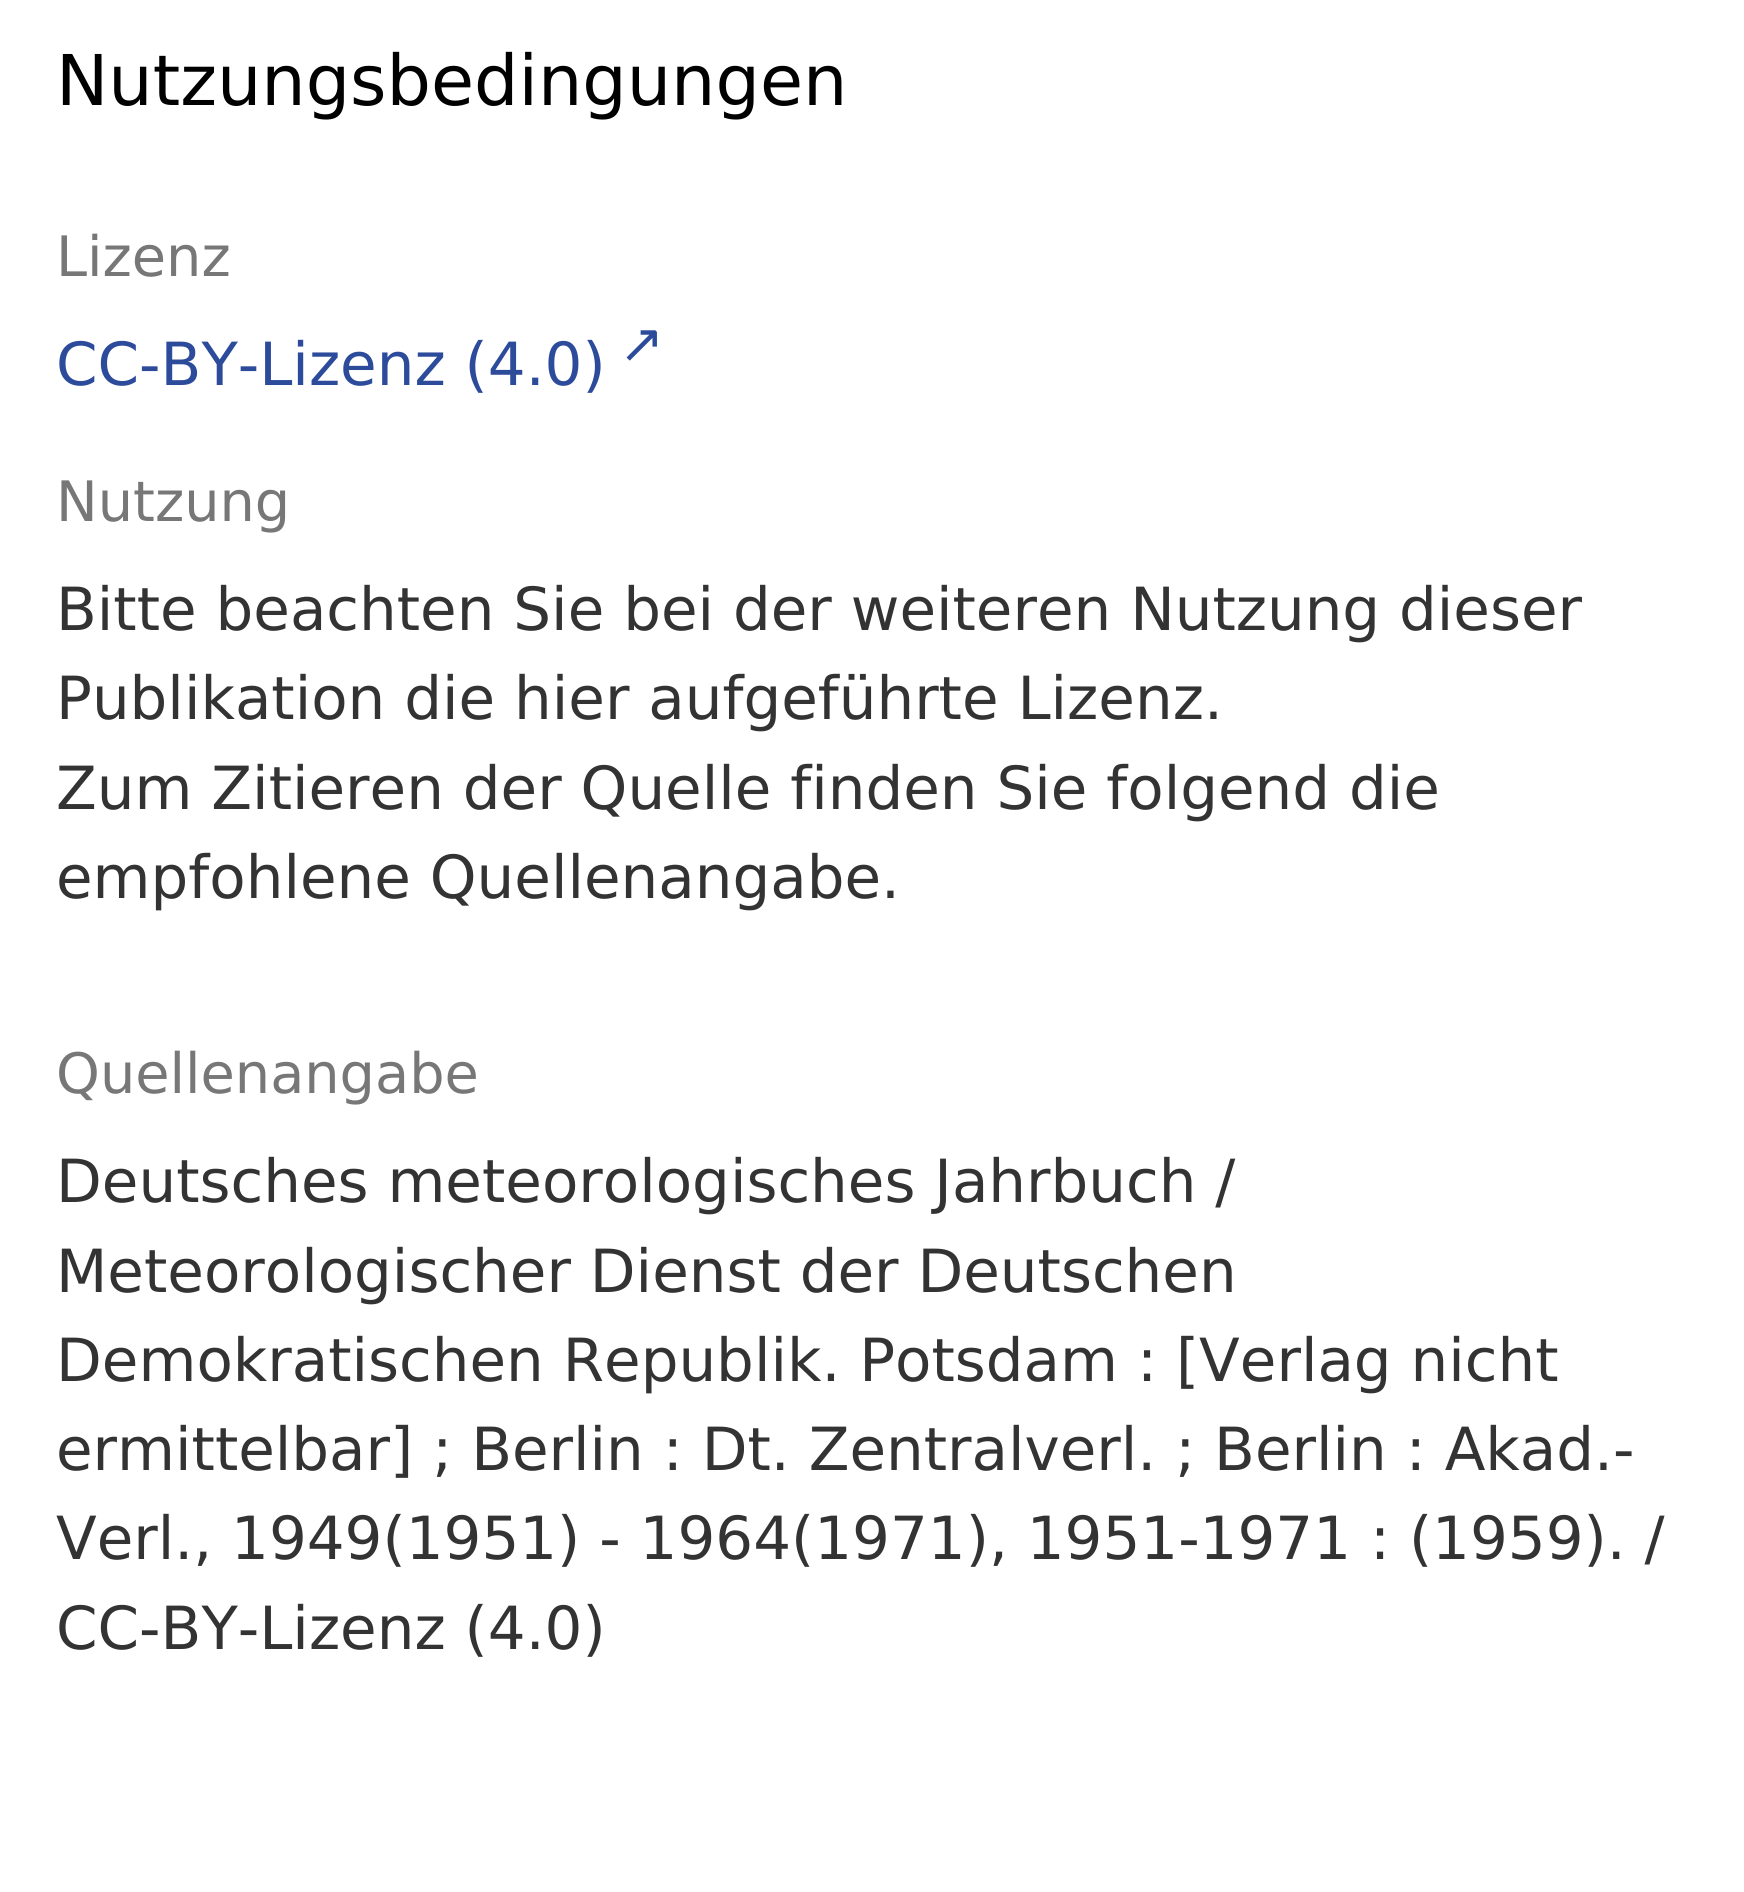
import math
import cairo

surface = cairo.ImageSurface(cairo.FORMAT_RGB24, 1744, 1892)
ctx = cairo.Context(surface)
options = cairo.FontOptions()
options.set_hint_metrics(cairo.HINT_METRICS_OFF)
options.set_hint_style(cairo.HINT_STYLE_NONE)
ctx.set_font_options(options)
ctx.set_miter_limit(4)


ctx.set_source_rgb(1, 1, 1)
ctx.paint()
ctx.select_font_face("DejaVu Sans")
ctx.set_font_size(70)
ctx.set_source_rgb(0, 0, 0)
ctx.move_to(56, 105)
ctx.show_text("Nutzungsbedingungen")
ctx.set_font_size(55.75)
ctx.set_source_rgb(0.467, 0.467, 0.467)
ctx.move_to(56, 276)
ctx.show_text("Lizenz")
ctx.set_font_size(59.5)
ctx.set_source_rgb(0.176, 0.294, 0.608)
ctx.move_to(56, 385)
ctx.show_text("CC-BY-Lizenz (4.0)")
ctx.select_font_face("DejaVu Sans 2")
ctx.set_font_size(54)
ctx.move_to(619, 362)
ctx.show_text("↗")
ctx.select_font_face("DejaVu Sans")
ctx.set_font_size(55.75)
ctx.set_source_rgb(0.467, 0.467, 0.467)
ctx.move_to(56, 521)
ctx.show_text("Nutzung")
ctx.set_font_size(59.5)
ctx.set_source_rgb(0.2, 0.2, 0.2)
ctx.move_to(56, 630)
ctx.show_text("Bitte beachten Sie bei der weiteren Nutzung dieser")
ctx.move_to(56, 719)
ctx.show_text("Publikation die hier aufgeführte Lizenz.")
ctx.move_to(56, 809)
ctx.show_text("Zum Zitieren der Quelle finden Sie folgend die")
ctx.move_to(56, 898)
ctx.show_text("empfohlene Quellenangabe.")
ctx.set_font_size(55.75)
ctx.set_source_rgb(0.467, 0.467, 0.467)
ctx.move_to(56, 1093)
ctx.show_text("Quellenangabe")
ctx.set_font_size(59.5)
ctx.set_source_rgb(0.2, 0.2, 0.2)
ctx.move_to(56, 1202)
ctx.show_text("Deutsches meteorologisches Jahrbuch /")
ctx.move_to(56, 1292)
ctx.show_text("Meteorologischer Dienst der Deutschen")
ctx.move_to(56, 1381)
ctx.show_text("Demokratischen Republik. Potsdam : [Verlag nicht")
ctx.move_to(56, 1470)
ctx.show_text("ermittelbar] ; Berlin : Dt. Zentralverl. ; Berlin : Akad.-")
ctx.move_to(56, 1559)
ctx.show_text("Verl., 1949(1951) - 1964(1971), 1951-1971 : (1959). /")
ctx.move_to(56, 1649)
ctx.show_text("CC-BY-Lizenz (4.0)")
surface.write_to_png("page.png")
